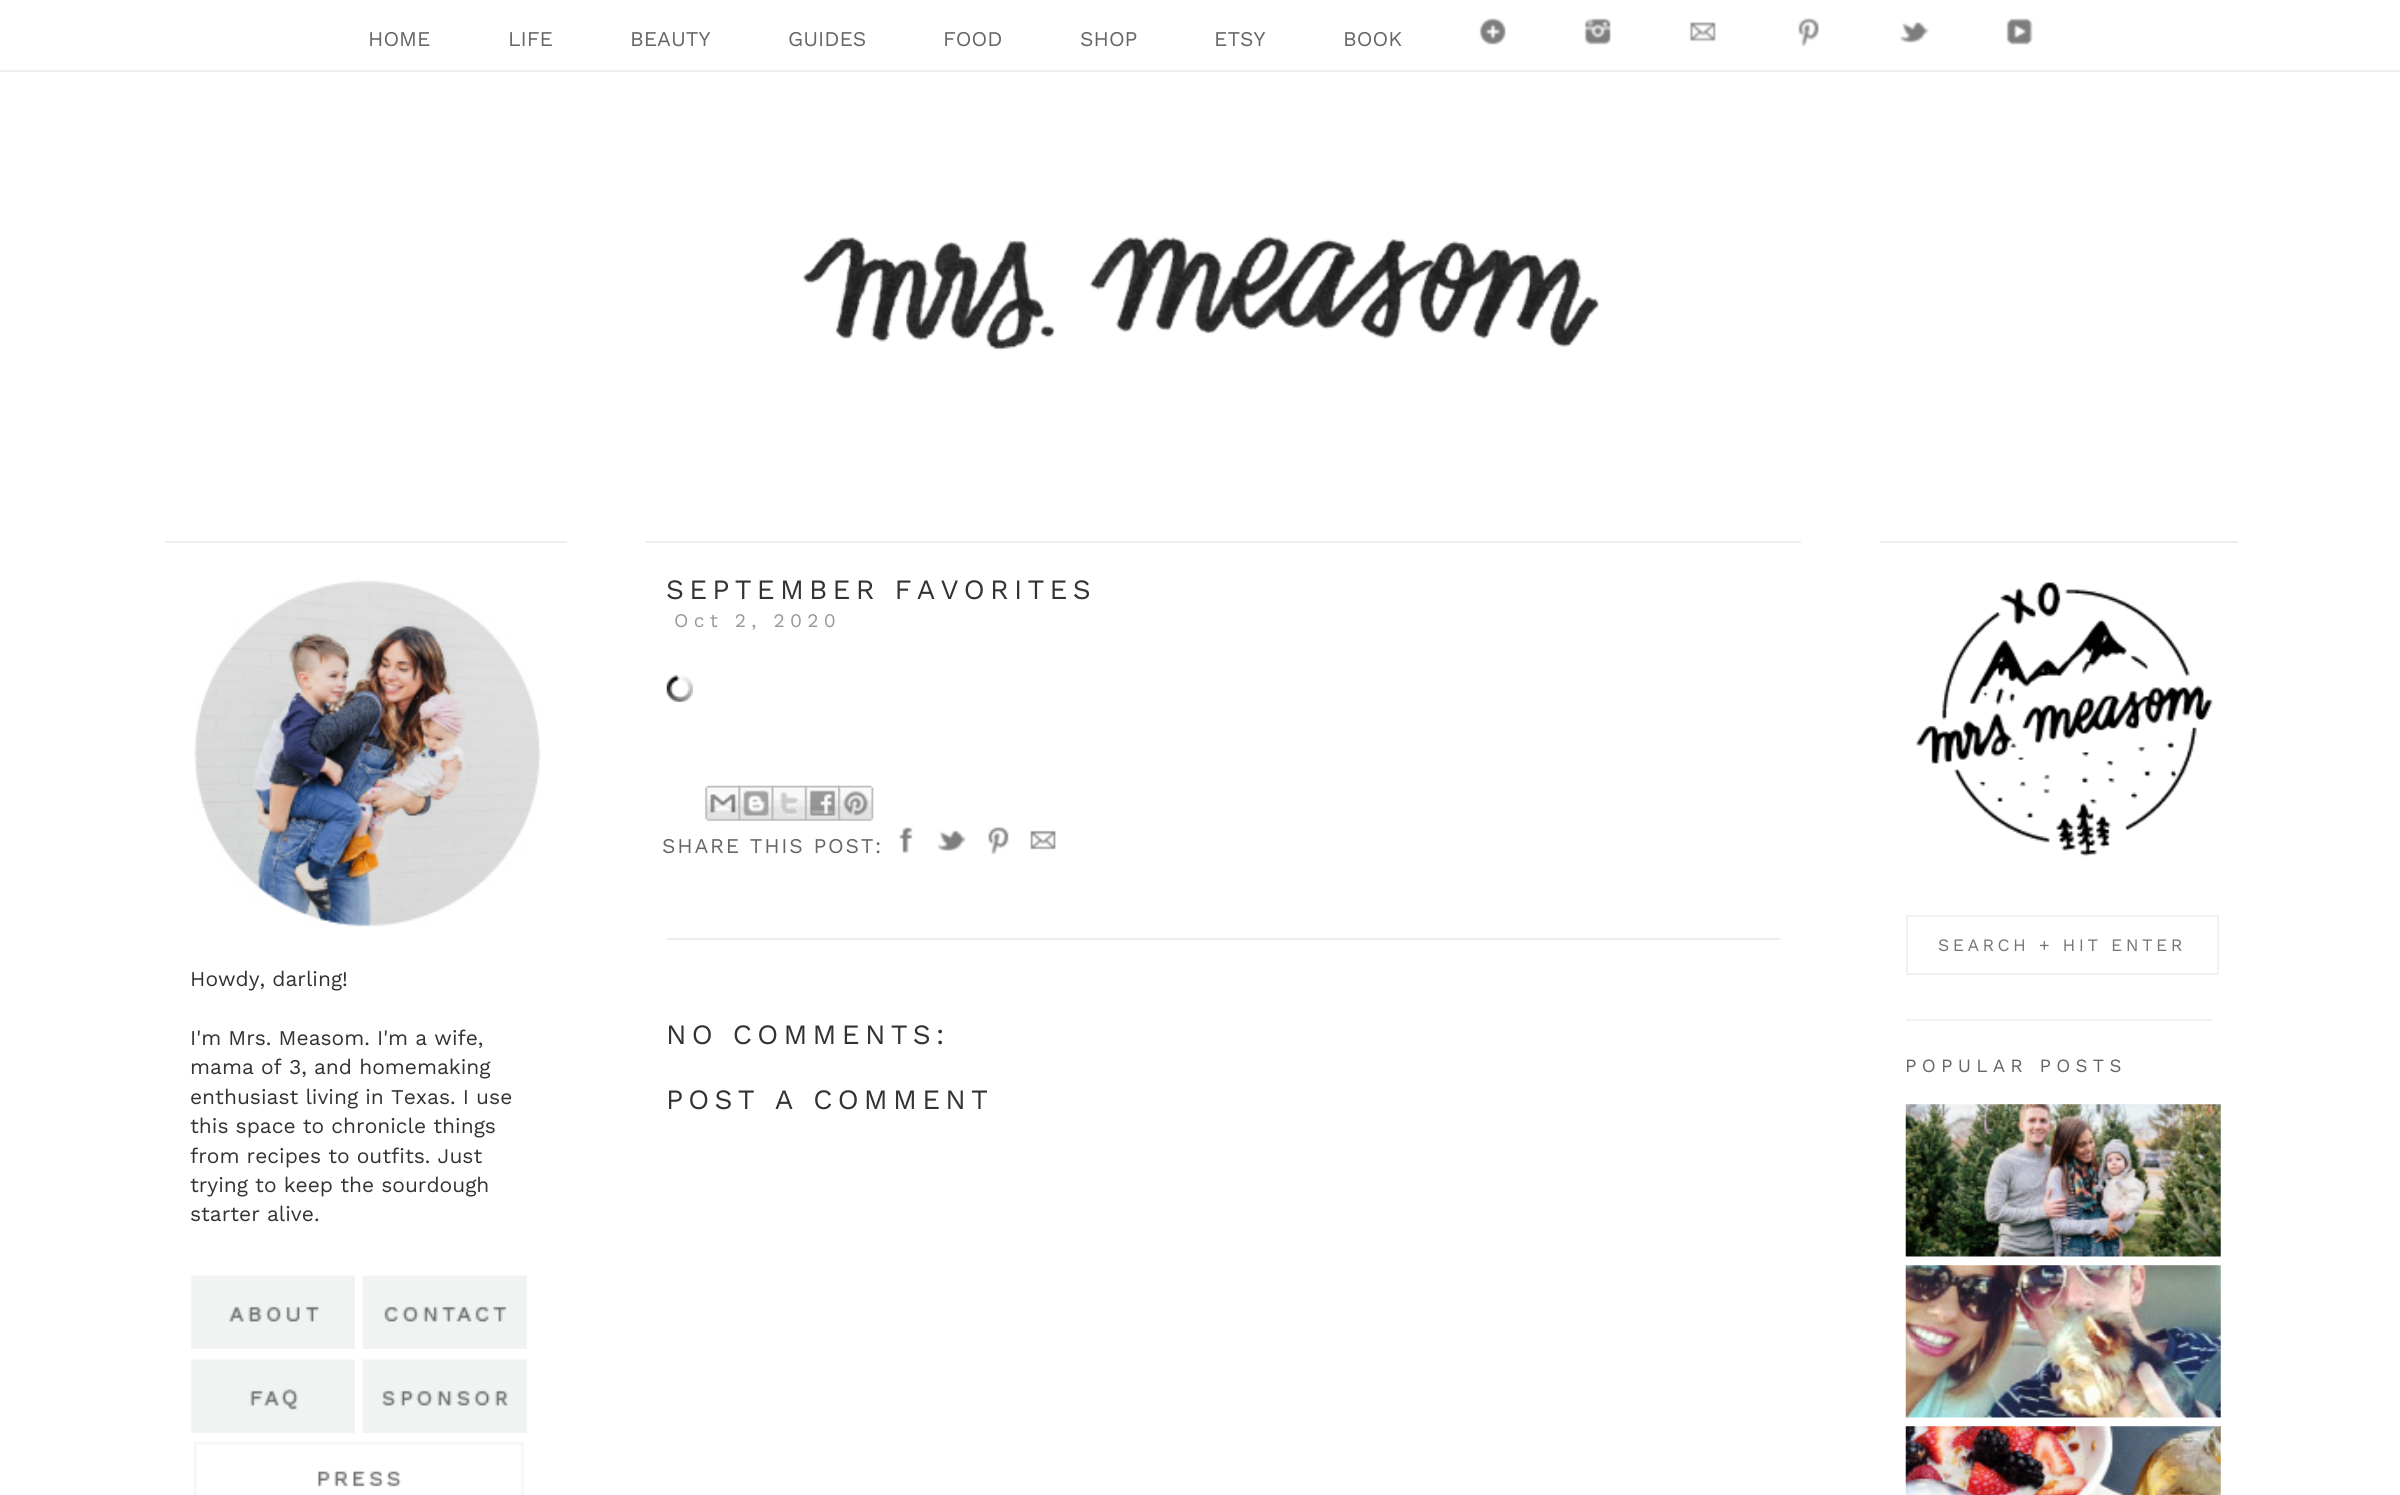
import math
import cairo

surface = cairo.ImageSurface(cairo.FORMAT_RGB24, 2400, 1495)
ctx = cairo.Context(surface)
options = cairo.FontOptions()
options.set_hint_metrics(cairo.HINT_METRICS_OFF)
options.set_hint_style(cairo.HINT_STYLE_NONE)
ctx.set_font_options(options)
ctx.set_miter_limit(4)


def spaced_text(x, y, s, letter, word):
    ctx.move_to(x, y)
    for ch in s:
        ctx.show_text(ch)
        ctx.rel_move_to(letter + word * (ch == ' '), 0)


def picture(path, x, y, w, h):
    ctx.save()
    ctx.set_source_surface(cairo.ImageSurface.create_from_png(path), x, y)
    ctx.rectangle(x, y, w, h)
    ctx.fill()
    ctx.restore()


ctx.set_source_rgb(1, 1, 1)
ctx.paint()
ctx.set_source_rgb(0.933, 0.933, 0.933)
ctx.rectangle(0, 70, 2400, 2)
ctx.fill()
ctx.select_font_face("Work Sans")
ctx.set_font_size(21)
ctx.set_source_rgb(0.4, 0.4, 0.4)
ctx.move_to(368, 46)
ctx.show_text("HOME")
ctx.move_to(508, 46)
ctx.show_text("LIFE")
ctx.move_to(630, 46)
ctx.show_text("BEAUTY")
ctx.move_to(788, 46)
ctx.show_text("GUIDES")
ctx.move_to(943, 46)
ctx.show_text("FOOD")
ctx.move_to(1080, 46)
ctx.show_text("SHOP")
ctx.move_to(1214, 46)
ctx.show_text("ETSY")
ctx.move_to(1343, 46)
ctx.show_text("BOOK")
picture("img1.png", 1479, 18, 27, 27)
picture("img2.png", 1584, 18, 27, 27)
picture("img3.png", 1689, 22, 27, 20)
picture("img4.png", 1798, 18, 21, 28)
picture("img5.png", 1900, 22, 29, 21)
picture("img6.png", 2006, 18, 27, 27)
picture("img7.png", 802, 235, 798, 116)
ctx.set_source_rgb(0.933, 0.933, 0.933)
ctx.rectangle(165, 541, 402, 2)
ctx.fill()
picture("img8.png", 194, 580, 347, 347)
ctx.set_source_rgb(0.2, 0.2, 0.2)
ctx.move_to(190, 986)
ctx.show_text("Howdy, darling!")
ctx.move_to(190, 1045)
ctx.show_text("I'm Mrs. Measom. I'm a wife,")
ctx.move_to(190, 1074)
ctx.show_text("mama of 3, and homemaking")
ctx.move_to(190, 1104)
ctx.show_text("enthusiast living in Texas. I use")
ctx.move_to(190, 1133)
ctx.show_text("this space to chronicle things")
ctx.move_to(190, 1163)
ctx.show_text("from recipes to outfits. Just")
ctx.move_to(190, 1192)
ctx.show_text("trying to keep the sourdough")
ctx.move_to(190, 1221)
ctx.show_text("starter alive.")
picture("img9.png", 191, 1275, 164, 74)
picture("img10.png", 362, 1275, 165, 74)
picture("img11.png", 191, 1359, 164, 74)
picture("img12.png", 362, 1359, 165, 74)
picture("img13.png", 194, 1442, 330, 53)
ctx.set_source_rgb(0.933, 0.933, 0.933)
ctx.rectangle(646, 541, 1155, 2)
ctx.fill()
ctx.rectangle(667, 938, 1113, 2)
ctx.fill()
ctx.set_font_size(28)
ctx.set_source_rgb(0.2, 0.2, 0.2)
spaced_text(666, 599, "SEPTEMBER FAVORITES", 5.25, 0)
picture("img14.png", 666, 675, 27, 27)
picture("img15.png", 705, 785, 36, 36)
picture("img16.png", 738, 785, 36, 36)
picture("img17.png", 771, 785, 36, 36)
picture("img18.png", 805, 785, 35, 36)
picture("img19.png", 838, 785, 36, 36)
ctx.set_font_size(21)
ctx.set_source_rgb(0.4, 0.4, 0.4)
spaced_text(662, 853, "SHARE THIS POST:", 1.75, 0)
picture("img20.png", 899, 827, 14, 26)
picture("img21.png", 938, 830, 28, 21)
picture("img22.png", 988, 827, 21, 27)
picture("img23.png", 1030, 830, 26, 20)
ctx.set_font_size(28)
ctx.set_source_rgb(0.2, 0.2, 0.2)
spaced_text(666, 1044, "NO COMMENTS:", 5.25, 0)
spaced_text(666, 1109, "POST A COMMENT", 5.25, 0)
ctx.set_font_size(19.25)
ctx.set_source_rgb(0.6, 0.6, 0.6)
spaced_text(674, 627, "Oct 2, 2020", 5.25, 0)
ctx.set_source_rgb(0.933, 0.933, 0.933)
ctx.rectangle(1880, 541, 358, 2)
ctx.fill()
picture("img24.png", 1915, 581, 298, 276)
ctx.rectangle(1907, 916, 311, 58)
ctx.set_source_rgb(0.945, 0.945, 0.945)
ctx.stroke()
ctx.set_font_size(17.5)
ctx.set_source_rgb(0.459, 0.459, 0.459)
spaced_text(1938, 951, "SEARCH + HIT ENTER", 3.5, 0)
ctx.set_source_rgb(0.945, 0.945, 0.945)
ctx.rectangle(1906, 1019, 306, 2)
ctx.fill()
ctx.set_font_size(18.75)
ctx.set_source_rgb(0.4, 0.4, 0.4)
spaced_text(1905, 1072, "POPULAR POSTS", 5.25, 0)
picture("img25.png", 1905, 1104, 316, 153)
picture("img26.png", 1905, 1265, 316, 153)
picture("img27.png", 1905, 1426, 316, 69)
surface.write_to_png("page.png")
